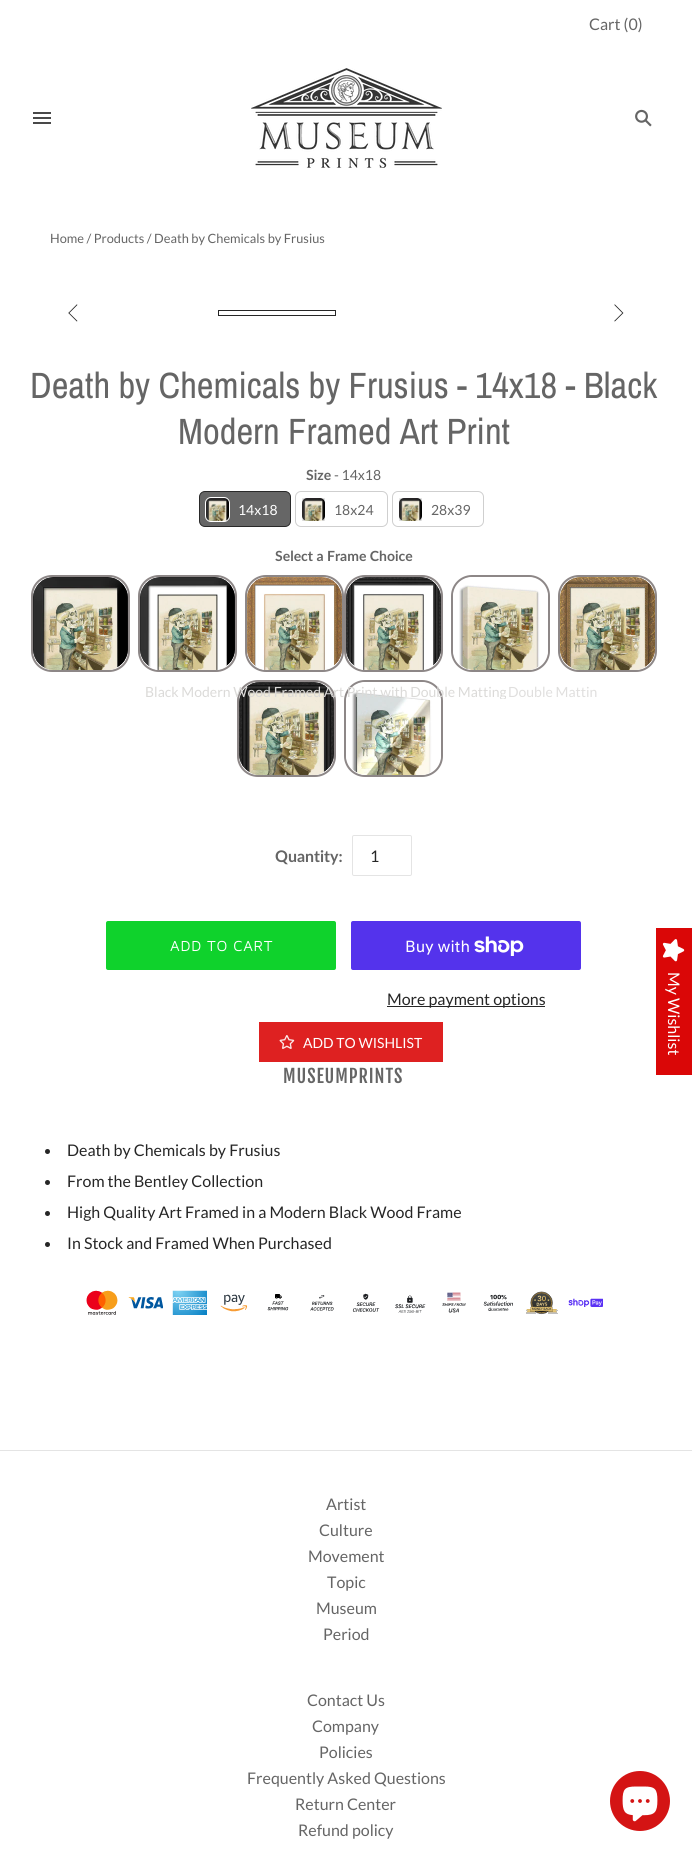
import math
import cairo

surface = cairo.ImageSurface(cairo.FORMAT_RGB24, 692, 1852)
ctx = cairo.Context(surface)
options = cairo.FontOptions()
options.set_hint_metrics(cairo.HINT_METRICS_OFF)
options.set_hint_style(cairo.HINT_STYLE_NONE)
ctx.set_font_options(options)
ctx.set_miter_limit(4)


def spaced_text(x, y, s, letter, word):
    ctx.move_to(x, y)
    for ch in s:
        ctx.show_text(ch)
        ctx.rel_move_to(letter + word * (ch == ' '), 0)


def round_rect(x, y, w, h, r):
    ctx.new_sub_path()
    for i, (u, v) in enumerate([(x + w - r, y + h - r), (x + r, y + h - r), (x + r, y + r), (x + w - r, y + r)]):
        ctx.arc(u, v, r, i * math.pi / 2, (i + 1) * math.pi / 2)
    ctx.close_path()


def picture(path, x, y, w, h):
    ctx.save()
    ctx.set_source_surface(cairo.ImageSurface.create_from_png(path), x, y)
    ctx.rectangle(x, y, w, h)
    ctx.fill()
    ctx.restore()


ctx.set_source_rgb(1, 1, 1)
ctx.paint()
ctx.select_font_face("Lato")
ctx.set_font_size(16)
ctx.set_source_rgb(0.396, 0.396, 0.396)
ctx.move_to(589, 30)
ctx.show_text("Cart (0)")
picture("img1.png", 33, 112, 18, 12)
picture("img2.png", 251, 68, 191, 100)
picture("img3.png", 635, 109, 17, 18)
ctx.set_font_size(12.8)
ctx.move_to(50, 243)
ctx.show_text("Home / Products / Death by Chemicals by Frusius")
picture("img4.png", 68, 304, 10, 18)
ctx.rectangle(218.5, 310.5, 117, 5)
ctx.set_source_rgb(0.149, 0.149, 0.149)
ctx.set_line_width(1)
ctx.stroke()
picture("img5.png", 614, 304, 10, 18)
ctx.select_font_face("Archivo Narrow")
ctx.set_font_size(36.6)
ctx.set_source_rgb(0.396, 0.396, 0.396)
ctx.move_to(30, 398)
ctx.show_text("Death by Chemicals by Frusius - 14x18 - Black")
ctx.move_to(178, 444)
ctx.show_text("Modern Framed Art Print")
ctx.select_font_face("Lato", cairo.FONT_SLANT_NORMAL, cairo.FONT_WEIGHT_BOLD)
ctx.set_font_size(14)
ctx.move_to(306, 480)
ctx.show_text("Size")
ctx.select_font_face("Lato")
ctx.move_to(334, 480)
ctx.show_text("- 14x18")
ctx.set_source_rgb(0.4, 0.4, 0.4)
round_rect(199.5, 491.5, 91, 35, 5.5)
ctx.fill_preserve()
ctx.set_source_rgb(0.161, 0.161, 0.161)
ctx.stroke()
picture("img6.png", 206, 498, 23, 23)
round_rect(205.5, 497.5, 24, 24, 5.5)
ctx.set_source_rgb(1, 1, 1)
ctx.stroke()
ctx.move_to(238, 515)
ctx.show_text("14x18")
round_rect(295.5, 491.5, 92, 35, 5.5)
ctx.set_source_rgb(0.812, 0.812, 0.812)
ctx.stroke()
picture("img7.png", 302, 498, 23, 23)
round_rect(301.5, 497.5, 24, 24, 5.5)
ctx.set_source_rgb(1, 1, 1)
ctx.stroke()
ctx.set_source_rgb(0.396, 0.396, 0.396)
ctx.move_to(334, 515)
ctx.show_text("18x24")
round_rect(392.5, 491.5, 91, 35, 5.5)
ctx.set_source_rgb(0.812, 0.812, 0.812)
ctx.stroke()
picture("img8.png", 399, 498, 23, 23)
round_rect(398.5, 497.5, 24, 24, 5.5)
ctx.set_source_rgb(1, 1, 1)
ctx.stroke()
ctx.set_source_rgb(0.396, 0.396, 0.396)
ctx.move_to(431, 515)
ctx.show_text("28x39")
ctx.select_font_face("Lato", cairo.FONT_SLANT_NORMAL, cairo.FONT_WEIGHT_BOLD)
ctx.move_to(275, 561)
ctx.show_text("Select a Frame Choice")
round_rect(32, 576, 97, 95, 20)
ctx.set_source_rgb(0.553, 0.529, 0.529)
ctx.set_line_width(2)
ctx.stroke()
picture("img9.png", 33, 577, 95, 93)
picture("img10.png", 33, 577, 95, 93)
round_rect(345, 576, 97, 95, 20)
ctx.stroke()
picture("img11.png", 346, 577, 95, 93)
picture("img12.png", 346, 577, 95, 93)
round_rect(452, 576, 97, 95, 20)
ctx.stroke()
picture("img13.png", 453, 577, 95, 93)
picture("img14.png", 453, 577, 95, 93)
round_rect(559, 576, 97, 95, 20)
ctx.stroke()
picture("img15.png", 560, 577, 95, 93)
picture("img16.png", 560, 577, 95, 93)
round_rect(238, 681, 97, 95, 20)
ctx.stroke()
picture("img17.png", 239, 682, 95, 93)
picture("img18.png", 239, 682, 95, 93)
round_rect(345, 681, 97, 95, 20)
ctx.stroke()
picture("img19.png", 346, 682, 95, 93)
picture("img20.png", 346, 682, 95, 93)
round_rect(139, 576, 97, 95, 20)
ctx.stroke()
picture("img21.png", 140, 577, 95, 93)
picture("img22.png", 140, 577, 95, 93)
ctx.save()
ctx.rectangle(145, 685, 361, 14)
ctx.clip()
ctx.select_font_face("Lato")
ctx.set_source_rgb(0.859, 0.855, 0.847)
ctx.move_to(145, 697)
ctx.show_text("Black Modern Wood Framed Art Print with Double Matting")
ctx.restore()
round_rect(246, 576, 97, 95, 20)
ctx.stroke()
picture("img23.png", 247, 577, 95, 93)
picture("img24.png", 247, 577, 95, 93)
ctx.select_font_face("Lato")
ctx.set_source_rgb(0.878, 0.875, 0.871)
ctx.move_to(508, 697)
ctx.show_text("Double Mattin")
ctx.select_font_face("Lato", cairo.FONT_SLANT_NORMAL, cairo.FONT_WEIGHT_BOLD)
ctx.set_font_size(16)
ctx.set_source_rgb(0.396, 0.396, 0.396)
ctx.move_to(275, 862)
ctx.show_text("Quantity:")
round_rect(352.5, 835.5, 59, 40, 1.5)
ctx.set_source_rgb(0.894, 0.894, 0.894)
ctx.set_line_width(1)
ctx.stroke()
ctx.select_font_face("Lato")
ctx.set_source_rgb(0.149, 0.149, 0.149)
ctx.move_to(370, 862)
ctx.show_text("1")
ctx.set_source_rgb(0.059, 0.824, 0.173)
round_rect(106, 921, 230, 49, 2)
ctx.fill()
ctx.select_font_face("Maven Pro")
ctx.set_font_size(15)
ctx.set_source_rgb(1, 1, 1)
spaced_text(170, 951, "ADD TO CART", 0.75, 0)
ctx.set_source_rgb(0.329, 0.2, 0.922)
round_rect(351, 921, 230, 49, 2)
ctx.fill()
ctx.select_font_face("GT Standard")
ctx.set_font_size(16)
ctx.set_source_rgb(1, 1, 1)
ctx.move_to(405, 952)
ctx.show_text("Buy with")
picture("img25.png", 474, 936, 50, 20)
ctx.set_source_rgb(0.149, 0.149, 0.149)
ctx.rectangle(387, 1006, 158, 1)
ctx.fill()
ctx.select_font_face("Lato")
ctx.move_to(387, 1005)
ctx.show_text("More payment options")
ctx.set_source_rgb(0.871, 0.129, 0.129)
ctx.rectangle(259, 1022, 184, 40)
ctx.fill()
picture("img26.png", 279, 1035, 16, 14)
ctx.set_font_size(14)
ctx.set_source_rgb(1, 1, 1)
ctx.move_to(303, 1048)
ctx.show_text("ADD TO WISHLIST")
ctx.select_font_face("Fjalla One")
ctx.set_font_size(18.25)
ctx.set_source_rgb(0.396, 0.396, 0.396)
spaced_text(283, 1083, "MUSEUMPRINTS", 0.9, 0)
ctx.set_source_rgb(0.149, 0.149, 0.149)
ctx.new_path()
ctx.arc(47.5, 1151.5, 2.5, 0, 2 * math.pi)
ctx.fill()
ctx.select_font_face("Lato")
ctx.set_font_size(16)
ctx.move_to(67, 1156)
ctx.show_text("Death by Chemicals by Frusius")
ctx.new_path()
ctx.arc(47.5, 1182.5, 2.5, 0, 2 * math.pi)
ctx.fill()
ctx.move_to(67, 1187)
ctx.show_text("From the Bentley Collection")
ctx.new_path()
ctx.arc(47.5, 1213.5, 2.5, 0, 2 * math.pi)
ctx.fill()
ctx.move_to(67, 1218)
ctx.show_text("High Quality Art Framed in a Modern Black Wood Frame")
ctx.new_path()
ctx.arc(47.5, 1244.5, 2.5, 0, 2 * math.pi)
ctx.fill()
ctx.move_to(67, 1249)
ctx.show_text("In Stock and Framed When Purchased")
picture("img27.png", 86, 1290, 517, 25)
ctx.set_source_rgb(0.855, 0.031, 0.031)
ctx.rectangle(656, 928, 36, 147)
ctx.fill()
picture("img28.png", 662, 939, 23, 23)
ctx.set_source_rgb(1, 1, 1)
ctx.save()
ctx.translate(668, 972)
ctx.rotate(90 * math.pi / 180)
ctx.move_to(0, 0)
ctx.show_text("My Wishlist")
ctx.restore()
ctx.set_source_rgb(0.894, 0.894, 0.894)
ctx.rectangle(0, 1450, 692, 1)
ctx.fill()
ctx.set_source_rgb(0.396, 0.396, 0.396)
ctx.move_to(326, 1510)
ctx.show_text("Artist")
ctx.move_to(319, 1536)
ctx.show_text("Culture")
ctx.move_to(308, 1562)
ctx.show_text("Movement")
ctx.move_to(327, 1588)
ctx.show_text("Topic")
ctx.move_to(316, 1614)
ctx.show_text("Museum")
ctx.move_to(323, 1640)
ctx.show_text("Period")
ctx.move_to(307, 1706)
ctx.show_text("Contact Us")
ctx.move_to(312, 1732)
ctx.show_text("Company")
ctx.move_to(319, 1758)
ctx.show_text("Policies")
ctx.move_to(247, 1784)
ctx.show_text("Frequently Asked Questions")
ctx.move_to(295, 1810)
ctx.show_text("Return Center")
ctx.move_to(298, 1836)
ctx.show_text("Refund policy")
ctx.set_source_rgb(0.831, 0.082, 0.082)
ctx.new_path()
ctx.arc(640, 1801, 30, 0, 2 * math.pi)
ctx.fill()
picture("img29.png", 622, 1786, 36, 36)
surface.write_to_png("page.png")
